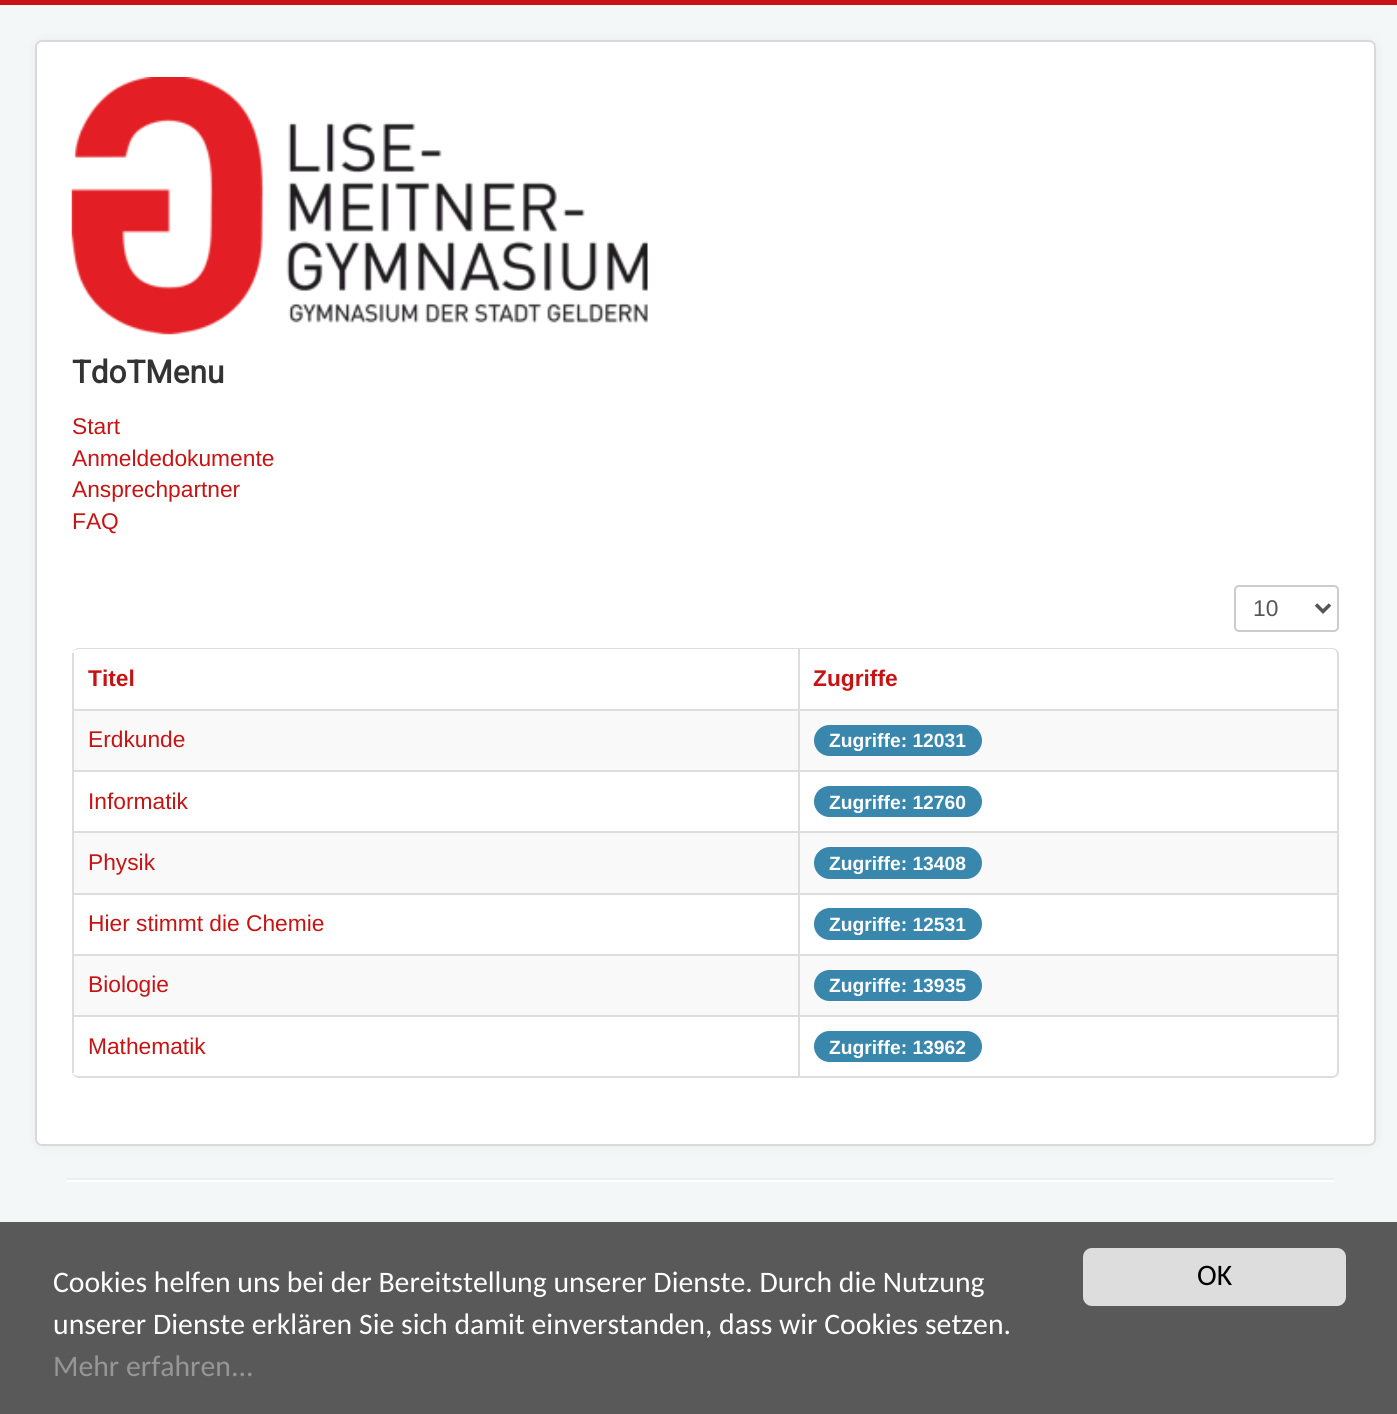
import math
import cairo

surface = cairo.ImageSurface(cairo.FORMAT_RGB24, 1397, 1414)
ctx = cairo.Context(surface)
options = cairo.FontOptions()
options.set_hint_metrics(cairo.HINT_METRICS_OFF)
options.set_hint_style(cairo.HINT_STYLE_NONE)
ctx.set_font_options(options)
ctx.set_miter_limit(4)


def round_rect(x, y, w, h, r):
    ctx.new_sub_path()
    for i, (u, v) in enumerate([(x + w - r, y + h - r), (x + r, y + h - r), (x + r, y + r), (x + w - r, y + r)]):
        ctx.arc(u, v, r, i * math.pi / 2, (i + 1) * math.pi / 2)
    ctx.close_path()


def shadow(x, y, w, h, r, blur, alpha):
    ctx.push_group_with_content(cairo.CONTENT_ALPHA)
    ctx.set_operator(cairo.OPERATOR_SOURCE)
    for i in range(15, -16, -2):
        e = blur * i / 6
        if min(w, h) + 2 * e > 0:
            ctx.set_source_rgba(0, 0, 0, alpha * math.erfc((i - 1) / 8.5) / 2)
            round_rect(x - e, y - e, w + 2 * e, h + 2 * e, max(0, min(r + e + blur * .6, min(w, h) / 2 + e)))
            ctx.fill()
    ctx.mask(ctx.pop_group())


def picture(path, x, y, w, h):
    ctx.save()
    ctx.set_source_surface(cairo.ImageSurface.create_from_png(path), x, y)
    ctx.rectangle(x, y, w, h)
    ctx.fill()
    ctx.restore()


ctx.set_source_rgb(0.957, 0.965, 0.969)
ctx.paint()
ctx.set_source_rgb(0.78, 0.078, 0.078)
ctx.rectangle(0, 0, 1397, 5)
ctx.fill()
ctx.set_source_rgb(0, 0, 0)
shadow(35, 40, 1341, 1106, 7, 5, 0.05)
ctx.set_source_rgb(1, 1, 1)
round_rect(35, 40, 1341, 1106, 7)
ctx.fill()
round_rect(36, 41, 1339, 1104, 6)
ctx.set_source_rgba(0, 0, 0, 0.15)
ctx.stroke()
picture("img1.png", 71, 77, 577, 258)
ctx.select_font_face("Roboto", cairo.FONT_SLANT_NORMAL, cairo.FONT_WEIGHT_BOLD)
ctx.set_font_size(31.5)
ctx.set_source_rgb(0.2, 0.2, 0.2)
ctx.move_to(72, 383)
ctx.show_text("TdoTMenu")
ctx.select_font_face("Liberation Sans")
ctx.set_font_size(22.75)
ctx.set_source_rgb(0.78, 0.078, 0.078)
ctx.move_to(72, 434)
ctx.show_text("Start")
ctx.move_to(72, 466)
ctx.show_text("Anmeldedokumente")
ctx.move_to(72, 497)
ctx.show_text("Ansprechpartner")
ctx.move_to(72, 529)
ctx.show_text("FAQ")
round_rect(1235, 586, 103, 45, 4)
ctx.set_source_rgb(0.8, 0.8, 0.8)
ctx.stroke()
ctx.new_path()
ctx.move_to(1316, 604.5)
ctx.line_to(1323, 611.5)
ctx.line_to(1330, 604.5)
ctx.set_source_rgb(0.333, 0.333, 0.333)
ctx.set_line_width(3.5)
ctx.stroke()
ctx.move_to(1253, 616)
ctx.show_text("10")
ctx.set_source_rgb(0.867, 0.867, 0.867)
ctx.set_fill_rule(cairo.FILL_RULE_EVEN_ODD)
ctx.new_path()
ctx.move_to(79, 648)
ctx.line_to(1332, 648)
ctx.curve_to(1336, 648, 1339, 651, 1339, 654)
ctx.line_to(1339, 1071)
ctx.curve_to(1339, 1075, 1336, 1078, 1332, 1078)
ctx.line_to(79, 1078)
ctx.curve_to(75, 1078, 72, 1075, 72, 1071)
ctx.line_to(72, 654)
ctx.curve_to(72, 651, 75, 648, 79, 648)
ctx.close_path()
ctx.move_to(79, 649)
ctx.line_to(1332, 649)
ctx.curve_to(1335, 649, 1337, 652, 1337, 654)
ctx.line_to(1337, 1071)
ctx.curve_to(1337, 1074, 1335, 1076, 1332, 1076)
ctx.line_to(79, 1076)
ctx.curve_to(75, 1076, 72, 1074, 72, 1071)
ctx.line_to(72, 654)
ctx.curve_to(72, 652, 75, 649, 79, 649)
ctx.close_path()
ctx.fill()
ctx.rectangle(72, 653, 2, 56)
ctx.fill()
ctx.select_font_face("Liberation Sans", cairo.FONT_SLANT_NORMAL, cairo.FONT_WEIGHT_BOLD)
ctx.set_source_rgb(0.78, 0.078, 0.078)
ctx.move_to(88, 686)
ctx.show_text("Titel")
ctx.set_source_rgb(0.867, 0.867, 0.867)
ctx.rectangle(798, 649, 2, 60)
ctx.fill()
ctx.set_source_rgb(0.78, 0.078, 0.078)
ctx.move_to(813, 686)
ctx.show_text("Zugriffe")
ctx.set_source_rgb(0.976, 0.976, 0.976)
ctx.rectangle(74, 711, 724, 59)
ctx.fill()
ctx.set_source_rgb(0.867, 0.867, 0.867)
ctx.rectangle(72, 709, 1265, 2)
ctx.fill()
ctx.rectangle(72, 709, 2, 61)
ctx.fill()
ctx.select_font_face("Liberation Sans")
ctx.set_source_rgb(0.78, 0.078, 0.078)
ctx.move_to(88, 747)
ctx.show_text("Erdkunde")
ctx.set_source_rgb(0.976, 0.976, 0.976)
ctx.rectangle(800, 711, 537, 59)
ctx.fill()
ctx.set_source_rgb(0.867, 0.867, 0.867)
ctx.rectangle(798, 709, 2, 61)
ctx.fill()
ctx.set_source_rgb(0.227, 0.529, 0.678)
round_rect(814, 725, 168, 31, 15.5)
ctx.fill()
ctx.select_font_face("Liberation Sans", cairo.FONT_SLANT_NORMAL, cairo.FONT_WEIGHT_BOLD)
ctx.set_font_size(19.25)
ctx.set_source_rgb(1, 1, 1)
ctx.move_to(829, 747)
ctx.show_text("Zugriffe: 12031")
ctx.set_source_rgb(0.867, 0.867, 0.867)
ctx.rectangle(72, 770, 1265, 2)
ctx.fill()
ctx.rectangle(72, 770, 2, 61)
ctx.fill()
ctx.select_font_face("Liberation Sans")
ctx.set_font_size(22.75)
ctx.set_source_rgb(0.78, 0.078, 0.078)
ctx.move_to(88, 809)
ctx.show_text("Informatik")
ctx.set_source_rgb(0.867, 0.867, 0.867)
ctx.rectangle(798, 770, 2, 61)
ctx.fill()
ctx.set_source_rgb(0.227, 0.529, 0.678)
round_rect(814, 786, 168, 31, 15.5)
ctx.fill()
ctx.select_font_face("Liberation Sans", cairo.FONT_SLANT_NORMAL, cairo.FONT_WEIGHT_BOLD)
ctx.set_font_size(19.25)
ctx.set_source_rgb(1, 1, 1)
ctx.move_to(829, 809)
ctx.show_text("Zugriffe: 12760")
ctx.set_source_rgb(0.976, 0.976, 0.976)
ctx.rectangle(74, 833, 724, 60)
ctx.fill()
ctx.set_source_rgb(0.867, 0.867, 0.867)
ctx.rectangle(72, 831, 1265, 2)
ctx.fill()
ctx.rectangle(72, 831, 2, 62)
ctx.fill()
ctx.select_font_face("Liberation Sans")
ctx.set_font_size(22.75)
ctx.set_source_rgb(0.78, 0.078, 0.078)
ctx.move_to(88, 870)
ctx.show_text("Physik")
ctx.set_source_rgb(0.976, 0.976, 0.976)
ctx.rectangle(800, 833, 537, 60)
ctx.fill()
ctx.set_source_rgb(0.867, 0.867, 0.867)
ctx.rectangle(798, 831, 2, 62)
ctx.fill()
ctx.set_source_rgb(0.227, 0.529, 0.678)
round_rect(814, 847, 168, 32, 16)
ctx.fill()
ctx.select_font_face("Liberation Sans", cairo.FONT_SLANT_NORMAL, cairo.FONT_WEIGHT_BOLD)
ctx.set_font_size(19.25)
ctx.set_source_rgb(1, 1, 1)
ctx.move_to(829, 870)
ctx.show_text("Zugriffe: 13408")
ctx.set_source_rgb(0.867, 0.867, 0.867)
ctx.rectangle(72, 893, 1265, 2)
ctx.fill()
ctx.rectangle(72, 893, 2, 61)
ctx.fill()
ctx.select_font_face("Liberation Sans")
ctx.set_font_size(22.75)
ctx.set_source_rgb(0.78, 0.078, 0.078)
ctx.move_to(88, 931)
ctx.show_text("Hier stimmt die Chemie")
ctx.set_source_rgb(0.867, 0.867, 0.867)
ctx.rectangle(798, 893, 2, 61)
ctx.fill()
ctx.set_source_rgb(0.227, 0.529, 0.678)
round_rect(814, 908, 168, 32, 16)
ctx.fill()
ctx.select_font_face("Liberation Sans", cairo.FONT_SLANT_NORMAL, cairo.FONT_WEIGHT_BOLD)
ctx.set_font_size(19.25)
ctx.set_source_rgb(1, 1, 1)
ctx.move_to(829, 931)
ctx.show_text("Zugriffe: 12531")
ctx.set_source_rgb(0.976, 0.976, 0.976)
ctx.rectangle(74, 956, 724, 59)
ctx.fill()
ctx.set_source_rgb(0.867, 0.867, 0.867)
ctx.rectangle(72, 954, 1265, 2)
ctx.fill()
ctx.rectangle(72, 954, 2, 61)
ctx.fill()
ctx.select_font_face("Liberation Sans")
ctx.set_font_size(22.75)
ctx.set_source_rgb(0.78, 0.078, 0.078)
ctx.move_to(88, 992)
ctx.show_text("Biologie")
ctx.set_source_rgb(0.976, 0.976, 0.976)
ctx.rectangle(800, 956, 537, 59)
ctx.fill()
ctx.set_source_rgb(0.867, 0.867, 0.867)
ctx.rectangle(798, 954, 2, 61)
ctx.fill()
ctx.set_source_rgb(0.227, 0.529, 0.678)
round_rect(814, 970, 168, 31, 15.5)
ctx.fill()
ctx.select_font_face("Liberation Sans", cairo.FONT_SLANT_NORMAL, cairo.FONT_WEIGHT_BOLD)
ctx.set_font_size(19.25)
ctx.set_source_rgb(1, 1, 1)
ctx.move_to(829, 992)
ctx.show_text("Zugriffe: 13935")
ctx.set_source_rgb(0.867, 0.867, 0.867)
ctx.rectangle(72, 1015, 1265, 2)
ctx.fill()
ctx.rectangle(72, 1015, 2, 58)
ctx.fill()
ctx.select_font_face("Liberation Sans")
ctx.set_font_size(22.75)
ctx.set_source_rgb(0.78, 0.078, 0.078)
ctx.move_to(88, 1054)
ctx.show_text("Mathematik")
ctx.set_source_rgb(0.867, 0.867, 0.867)
ctx.rectangle(798, 1015, 2, 61)
ctx.fill()
ctx.set_source_rgb(0.227, 0.529, 0.678)
round_rect(814, 1031, 168, 31, 15.5)
ctx.fill()
ctx.select_font_face("Liberation Sans", cairo.FONT_SLANT_NORMAL, cairo.FONT_WEIGHT_BOLD)
ctx.set_font_size(19.25)
ctx.set_source_rgb(1, 1, 1)
ctx.move_to(829, 1054)
ctx.show_text("Zugriffe: 13962")
ctx.set_source_rgb(0.933, 0.933, 0.933)
ctx.rectangle(67, 1178, 1267, 2)
ctx.fill()
ctx.set_source_rgb(1, 1, 1)
ctx.rectangle(67, 1180, 1267, 2)
ctx.fill()
ctx.set_source_rgba(0.2, 0.2, 0.2, 0.8)
ctx.rectangle(0, 1222, 1397, 192)
ctx.fill()
ctx.select_font_face("Carlito")
ctx.set_font_size(29.75)
ctx.set_source_rgb(1, 1, 1)
ctx.move_to(53, 1292)
ctx.show_text("Cookies helfen uns bei der Bereitstellung unserer Dienste. Durch die Nutzung")
ctx.move_to(53, 1334)
ctx.show_text("unserer Dienste erklären Sie sich damit einverstanden, dass wir Cookies setzen.")
ctx.set_source_rgb(0.588, 0.588, 0.588)
ctx.move_to(53, 1376)
ctx.show_text("Mehr erfahren...")
ctx.set_source_rgb(0.867, 0.867, 0.867)
round_rect(1083, 1248, 263, 58, 9)
ctx.fill()
ctx.set_source_rgb(0, 0, 0)
ctx.move_to(1197, 1285)
ctx.show_text("OK")
surface.write_to_png("page.png")
